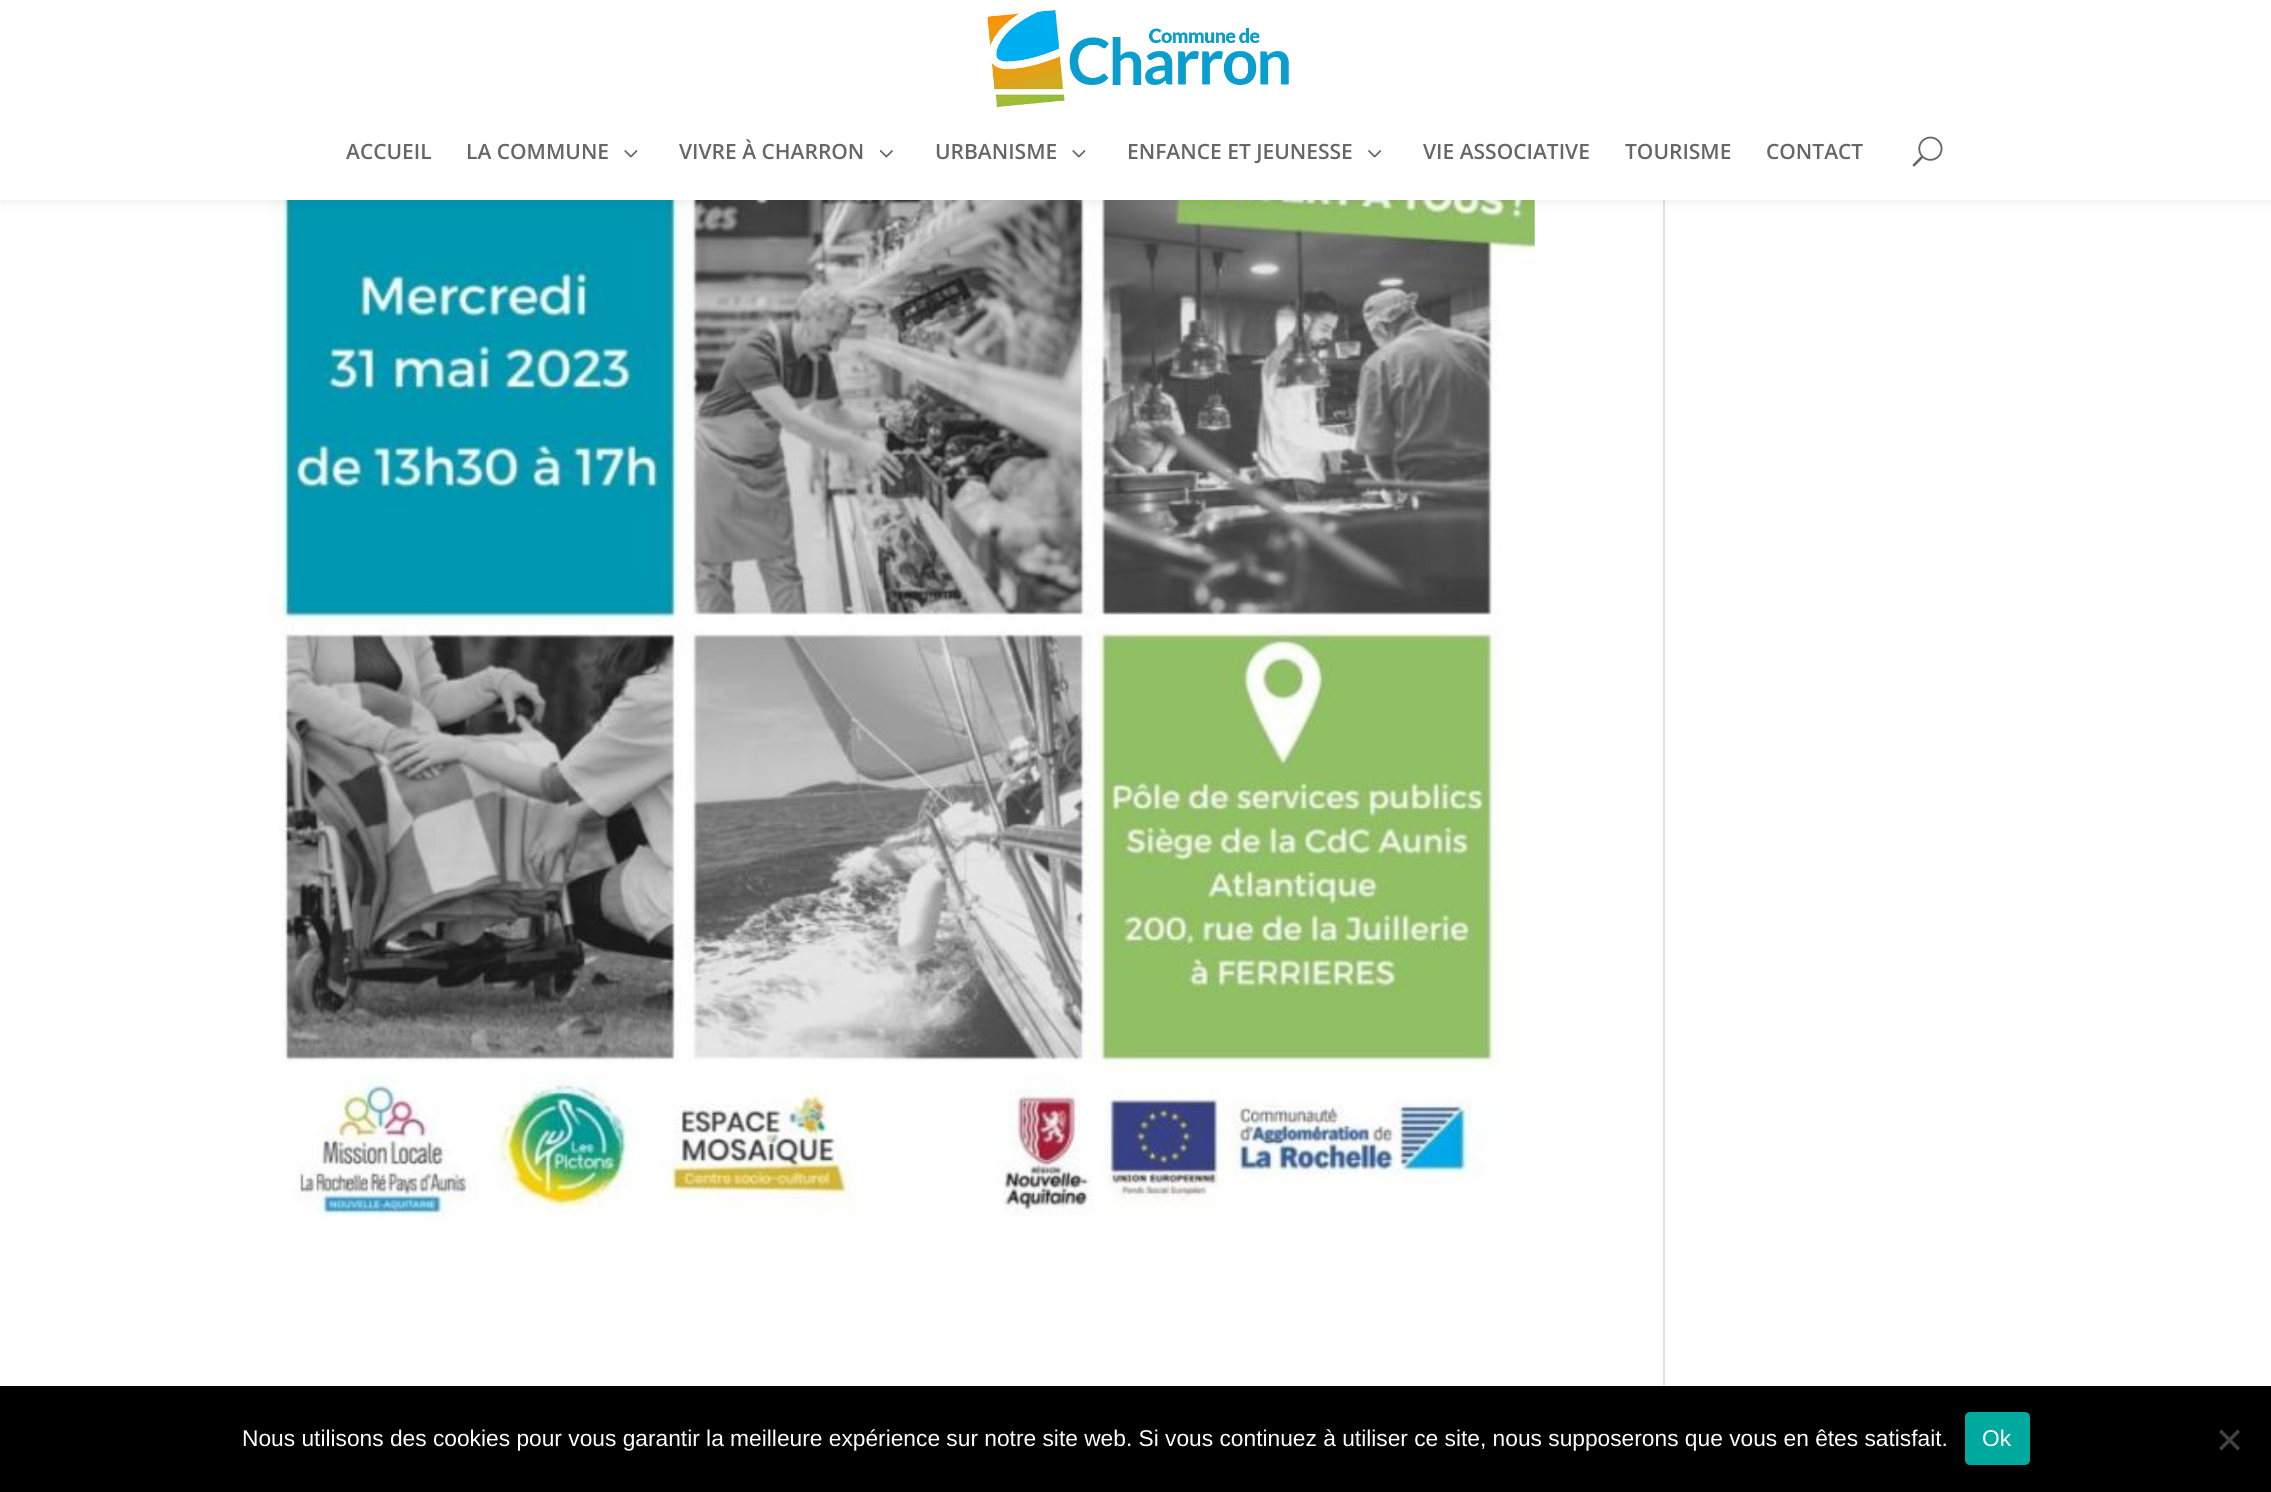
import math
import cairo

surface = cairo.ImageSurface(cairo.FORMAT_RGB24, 2271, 1492)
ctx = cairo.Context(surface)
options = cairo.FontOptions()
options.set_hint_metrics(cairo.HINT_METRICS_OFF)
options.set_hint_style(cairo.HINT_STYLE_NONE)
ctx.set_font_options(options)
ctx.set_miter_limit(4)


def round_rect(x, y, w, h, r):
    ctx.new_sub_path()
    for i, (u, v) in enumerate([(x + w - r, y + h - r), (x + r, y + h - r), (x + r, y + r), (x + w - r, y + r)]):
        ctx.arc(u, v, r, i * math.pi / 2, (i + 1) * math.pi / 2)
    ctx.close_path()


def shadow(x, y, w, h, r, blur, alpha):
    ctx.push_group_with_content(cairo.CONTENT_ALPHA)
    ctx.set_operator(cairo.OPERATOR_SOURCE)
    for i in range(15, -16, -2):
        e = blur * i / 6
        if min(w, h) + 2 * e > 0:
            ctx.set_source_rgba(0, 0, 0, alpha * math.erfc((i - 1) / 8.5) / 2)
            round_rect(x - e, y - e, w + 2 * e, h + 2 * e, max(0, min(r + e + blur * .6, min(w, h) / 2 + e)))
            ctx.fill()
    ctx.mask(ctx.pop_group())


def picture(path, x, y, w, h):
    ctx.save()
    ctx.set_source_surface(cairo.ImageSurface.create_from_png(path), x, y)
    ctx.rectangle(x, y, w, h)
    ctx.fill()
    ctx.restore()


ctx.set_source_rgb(1, 1, 1)
ctx.paint()
picture("img6.png", 268, 200, 1267, 1020)
ctx.set_source_rgb(0.886, 0.886, 0.886)
ctx.rectangle(1663, 200, 2, 1186)
ctx.fill()
ctx.set_source_rgb(0, 0, 0)
shadow(0, 0, 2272, 200, 0, 6, 0.1)
ctx.set_source_rgb(1, 1, 1)
ctx.rectangle(0, 0, 2271, 200)
ctx.fill()
picture("img1.png", 987, 10, 302, 98)
ctx.select_font_face("Open Sans SemiBold")
ctx.set_font_size(21)
ctx.set_source_rgb(0.4, 0.4, 0.4)
ctx.move_to(346, 159)
ctx.show_text("ACCUEIL")
ctx.move_to(466, 159)
ctx.show_text("LA COMMUNE")
picture("img2.png", 624, 150, 14, 8)
ctx.move_to(679, 159)
ctx.show_text("VIVRE À CHARRON")
picture("img3.png", 879, 150, 14, 8)
ctx.move_to(935, 159)
ctx.show_text("URBANISME")
picture("img2.png", 1072, 150, 14, 8)
ctx.move_to(1127, 159)
ctx.show_text("ENFANCE ET JEUNESSE")
picture("img4.png", 1368, 150, 14, 8)
ctx.move_to(1423, 159)
ctx.show_text("VIE ASSOCIATIVE")
ctx.move_to(1625, 159)
ctx.show_text("TOURISME")
ctx.move_to(1766, 159)
ctx.show_text("CONTACT")
picture("img5.png", 1912, 136, 31, 31)
ctx.set_source_rgb(0, 0, 0)
ctx.rectangle(0, 1386, 2271, 106)
ctx.fill()
ctx.select_font_face("Liberation Sans")
ctx.set_font_size(22.75)
ctx.set_source_rgb(1, 1, 1)
ctx.move_to(242, 1446)
ctx.show_text("Nous utilisons des cookies pour vous garantir la meilleure expérience sur notre site web. Si vous continuez à utiliser ce site, nous supposerons que vous en êtes satisfait.")
ctx.set_source_rgb(0, 0.663, 0.616)
round_rect(1965, 1412, 65, 53, 5)
ctx.fill()
ctx.set_source_rgb(1, 1, 1)
ctx.move_to(1982, 1446)
ctx.show_text("Ok")
ctx.set_source_rgb(0.251, 0.251, 0.251)
ctx.new_path()
ctx.move_to(2237.5, 1429.5)
ctx.line_to(2240, 1432)
ctx.line_to(2221.5, 1450.5)
ctx.line_to(2219, 1448)
ctx.close_path()
ctx.fill()
ctx.new_path()
ctx.move_to(2219, 1432)
ctx.line_to(2221.5, 1429.5)
ctx.line_to(2240, 1448)
ctx.line_to(2237.5, 1450.5)
ctx.close_path()
ctx.fill()
surface.write_to_png("page.png")
